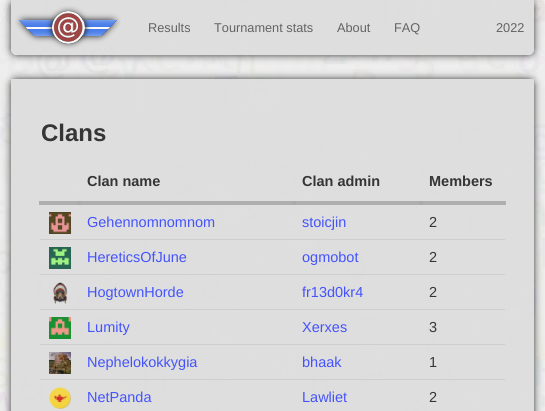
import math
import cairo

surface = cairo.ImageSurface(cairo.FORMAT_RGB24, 545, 411)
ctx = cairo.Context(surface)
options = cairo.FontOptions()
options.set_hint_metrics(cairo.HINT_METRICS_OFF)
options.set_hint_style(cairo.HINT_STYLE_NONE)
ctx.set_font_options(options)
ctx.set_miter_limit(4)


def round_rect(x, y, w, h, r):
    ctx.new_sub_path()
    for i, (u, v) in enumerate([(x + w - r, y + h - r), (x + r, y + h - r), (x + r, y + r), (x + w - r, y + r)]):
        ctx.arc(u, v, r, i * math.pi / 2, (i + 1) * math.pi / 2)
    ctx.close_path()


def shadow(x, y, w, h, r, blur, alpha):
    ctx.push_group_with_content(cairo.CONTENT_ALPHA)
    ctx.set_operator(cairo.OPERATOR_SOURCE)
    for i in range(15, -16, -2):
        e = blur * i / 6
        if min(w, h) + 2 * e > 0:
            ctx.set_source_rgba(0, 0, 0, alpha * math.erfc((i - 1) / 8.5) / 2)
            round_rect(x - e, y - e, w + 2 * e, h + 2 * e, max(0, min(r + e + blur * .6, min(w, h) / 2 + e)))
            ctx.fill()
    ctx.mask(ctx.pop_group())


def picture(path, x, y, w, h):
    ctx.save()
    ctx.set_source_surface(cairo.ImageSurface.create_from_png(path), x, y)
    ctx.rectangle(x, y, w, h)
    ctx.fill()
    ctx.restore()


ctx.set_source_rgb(1, 1, 1)
ctx.paint()
picture("img1.png", 0, 0, 545, 411)
ctx.save()
ctx.set_fill_rule(cairo.FILL_RULE_EVEN_ODD)
ctx.new_path()
ctx.move_to(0, 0)
ctx.line_to(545, 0)
ctx.line_to(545, 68)
ctx.line_to(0, 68)
ctx.close_path()
ctx.move_to(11, 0)
ctx.line_to(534, 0)
ctx.line_to(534, 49)
ctx.curve_to(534, 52.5, 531.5, 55, 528, 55)
ctx.line_to(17, 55)
ctx.curve_to(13.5, 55, 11, 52.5, 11, 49)
ctx.close_path()
ctx.clip()
ctx.set_source_rgb(0.133, 0.133, 0.133)
shadow(11, 0, 523, 55, 6, 4, 0.9)
ctx.restore()
ctx.set_source_rgba(0.867, 0.867, 0.867, 0.9)
ctx.new_path()
ctx.move_to(11, 0)
ctx.line_to(534, 0)
ctx.line_to(534, 49)
ctx.curve_to(534, 52.5, 531.5, 55, 528, 55)
ctx.line_to(17, 55)
ctx.curve_to(13.5, 55, 11, 52.5, 11, 49)
ctx.close_path()
ctx.fill()
picture("img2.png", 15, 6, 106, 43)
ctx.select_font_face("Liberation Sans")
ctx.set_font_size(12.75)
ctx.set_source_rgb(0.388, 0.388, 0.388)
ctx.move_to(148, 32)
ctx.show_text("Results")
ctx.move_to(214, 32)
ctx.show_text("Tournament stats")
ctx.move_to(337, 32)
ctx.show_text("About")
ctx.move_to(394, 32)
ctx.show_text("FAQ")
ctx.move_to(496, 32)
ctx.show_text("2022")
ctx.save()
ctx.set_fill_rule(cairo.FILL_RULE_EVEN_ODD)
ctx.new_path()
ctx.move_to(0, 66)
ctx.line_to(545, 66)
ctx.line_to(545, 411)
ctx.line_to(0, 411)
ctx.close_path()
ctx.move_to(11, 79)
ctx.line_to(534, 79)
ctx.line_to(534, 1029)
ctx.curve_to(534, 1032.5, 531.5, 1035, 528, 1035)
ctx.line_to(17, 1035)
ctx.curve_to(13.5, 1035, 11, 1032.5, 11, 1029)
ctx.close_path()
ctx.clip()
ctx.set_source_rgb(0.133, 0.133, 0.133)
shadow(11, 79, 523, 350, 6, 4, 0.9)
ctx.restore()
ctx.set_source_rgba(0.867, 0.867, 0.867, 0.9)
ctx.rectangle(11, 79, 523, 332)
ctx.fill()
ctx.select_font_face("Liberation Sans", cairo.FONT_SLANT_NORMAL, cairo.FONT_WEIGHT_BOLD)
ctx.set_font_size(24)
ctx.set_source_rgb(0.208, 0.208, 0.208)
ctx.move_to(41, 141)
ctx.show_text("Clans")
ctx.set_source_rgb(0.808, 0.808, 0.808)
ctx.rectangle(40, 203, 465, 1)
ctx.fill()
ctx.set_source_rgba(0.667, 0.667, 0.667, 0.9)
ctx.rectangle(419, 201, 87, 4)
ctx.fill()
ctx.rectangle(292, 201, 131, 4)
ctx.fill()
ctx.rectangle(77, 201, 219, 4)
ctx.fill()
ctx.set_font_size(14.5)
ctx.set_source_rgb(0.208, 0.208, 0.208)
ctx.move_to(87, 186)
ctx.show_text("Clan name")
ctx.move_to(302, 186)
ctx.show_text("Clan admin")
ctx.move_to(429, 186)
ctx.show_text("Members")
ctx.set_source_rgba(0.667, 0.667, 0.667, 0.9)
ctx.rectangle(39, 201, 42, 4)
ctx.fill()
ctx.set_source_rgb(0.808, 0.808, 0.808)
ctx.rectangle(40, 239, 465, 1)
ctx.fill()
picture("img3.png", 49, 212, 22, 22)
ctx.select_font_face("Liberation Sans")
ctx.set_source_rgb(0.267, 0.325, 0.988)
ctx.move_to(87, 227)
ctx.show_text("Gehennomnomnom")
ctx.move_to(302, 227)
ctx.show_text("stoicjin")
ctx.set_source_rgb(0.208, 0.208, 0.208)
ctx.move_to(429, 227)
ctx.show_text("2")
ctx.set_source_rgb(0.808, 0.808, 0.808)
ctx.rectangle(40, 274, 465, 1)
ctx.fill()
picture("img4.png", 49, 247, 22, 22)
ctx.set_source_rgb(0.267, 0.325, 0.988)
ctx.move_to(87, 262)
ctx.show_text("HereticsOfJune")
ctx.move_to(302, 262)
ctx.show_text("ogmobot")
ctx.set_source_rgb(0.208, 0.208, 0.208)
ctx.move_to(429, 262)
ctx.show_text("2")
ctx.set_source_rgb(0.808, 0.808, 0.808)
ctx.rectangle(40, 309, 465, 1)
ctx.fill()
picture("img5.png", 53, 282, 15, 22)
ctx.set_source_rgb(0.267, 0.325, 0.988)
ctx.move_to(87, 297)
ctx.show_text("HogtownHorde")
ctx.move_to(302, 297)
ctx.show_text("fr13d0kr4")
ctx.set_source_rgb(0.208, 0.208, 0.208)
ctx.move_to(429, 297)
ctx.show_text("2")
ctx.set_source_rgb(0.808, 0.808, 0.808)
ctx.rectangle(40, 344, 465, 1)
ctx.fill()
picture("img6.png", 49, 317, 22, 22)
ctx.set_source_rgb(0.267, 0.325, 0.988)
ctx.move_to(87, 332)
ctx.show_text("Lumity")
ctx.move_to(302, 332)
ctx.show_text("Xerxes")
ctx.set_source_rgb(0.208, 0.208, 0.208)
ctx.move_to(429, 332)
ctx.show_text("3")
ctx.set_source_rgb(0.808, 0.808, 0.808)
ctx.rectangle(40, 379, 465, 1)
ctx.fill()
picture("img7.png", 49, 352, 22, 22)
ctx.set_source_rgb(0.267, 0.325, 0.988)
ctx.move_to(87, 367)
ctx.show_text("Nephelokokkygia")
ctx.move_to(302, 367)
ctx.show_text("bhaak")
ctx.set_source_rgb(0.208, 0.208, 0.208)
ctx.move_to(429, 367)
ctx.show_text("1")
picture("img8.png", 49, 387, 22, 22)
ctx.set_source_rgb(0.267, 0.325, 0.988)
ctx.move_to(87, 402)
ctx.show_text("NetPanda")
ctx.move_to(302, 402)
ctx.show_text("Lawliet")
ctx.set_source_rgb(0.208, 0.208, 0.208)
ctx.move_to(429, 402)
ctx.show_text("2")
surface.write_to_png("page.png")
